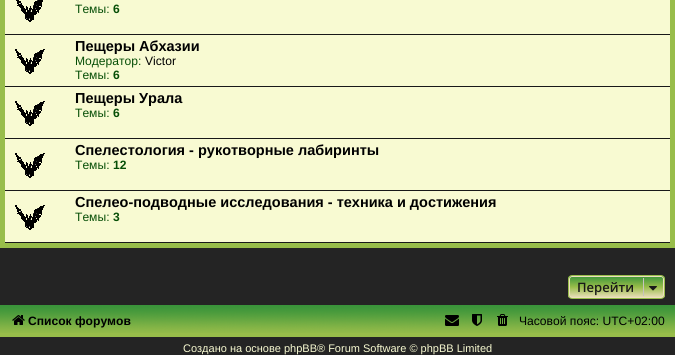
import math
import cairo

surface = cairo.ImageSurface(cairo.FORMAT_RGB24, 675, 355)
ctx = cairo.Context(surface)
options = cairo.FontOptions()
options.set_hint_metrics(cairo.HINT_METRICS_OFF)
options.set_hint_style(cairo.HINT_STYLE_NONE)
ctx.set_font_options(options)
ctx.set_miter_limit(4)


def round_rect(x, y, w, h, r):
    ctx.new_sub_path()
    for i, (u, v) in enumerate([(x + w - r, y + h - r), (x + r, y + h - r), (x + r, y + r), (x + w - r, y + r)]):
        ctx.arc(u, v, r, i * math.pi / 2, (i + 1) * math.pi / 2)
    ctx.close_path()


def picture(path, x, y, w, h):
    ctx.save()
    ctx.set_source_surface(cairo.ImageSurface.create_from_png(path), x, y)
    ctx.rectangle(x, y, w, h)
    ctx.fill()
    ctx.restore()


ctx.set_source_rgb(0.141, 0.141, 0.141)
ctx.paint()
ctx.set_source_rgb(0.596, 0.741, 0.29)
ctx.rectangle(0, 0, 675, 248)
ctx.fill()
ctx.set_source_rgb(0.969, 0.98, 0.824)
ctx.rectangle(5, 0, 665, 242)
ctx.fill()
ctx.set_source_rgb(0.094, 0.094, 0.094)
ctx.rectangle(5, 34, 665, 1)
ctx.fill()
picture("img1.png", 16, 0, 27, 22)
ctx.select_font_face("Liberation Sans")
ctx.set_font_size(12.1)
ctx.set_source_rgb(0.024, 0.306, 0.024)
ctx.move_to(75, 13)
ctx.show_text("Темы:")
ctx.select_font_face("Liberation Sans", cairo.FONT_SLANT_NORMAL, cairo.FONT_WEIGHT_BOLD)
ctx.move_to(113, 13)
ctx.show_text("6")
ctx.set_source_rgb(0.094, 0.094, 0.094)
ctx.rectangle(5, 86, 665, 1)
ctx.fill()
picture("img2.png", 15, 49, 30, 25)
ctx.set_font_size(14.5)
ctx.set_source_rgb(0, 0, 0)
ctx.move_to(75, 51)
ctx.show_text("Пещеры Абхазии")
ctx.select_font_face("Liberation Sans")
ctx.set_font_size(12.1)
ctx.set_source_rgb(0.024, 0.306, 0.024)
ctx.move_to(75, 65)
ctx.show_text("Модератор:")
ctx.set_source_rgb(0, 0, 0)
ctx.move_to(145, 65)
ctx.show_text("Victor")
ctx.set_source_rgb(0.024, 0.306, 0.024)
ctx.move_to(75, 79)
ctx.show_text("Темы:")
ctx.select_font_face("Liberation Sans", cairo.FONT_SLANT_NORMAL, cairo.FONT_WEIGHT_BOLD)
ctx.move_to(113, 79)
ctx.show_text("6")
ctx.set_source_rgb(0.094, 0.094, 0.094)
ctx.rectangle(5, 138, 665, 1)
ctx.fill()
picture("img2.png", 15, 101, 30, 25)
ctx.set_font_size(14.5)
ctx.set_source_rgb(0, 0, 0)
ctx.move_to(75, 103)
ctx.show_text("Пещеры Урала")
ctx.select_font_face("Liberation Sans")
ctx.set_font_size(12.1)
ctx.set_source_rgb(0.024, 0.306, 0.024)
ctx.move_to(75, 117)
ctx.show_text("Темы:")
ctx.select_font_face("Liberation Sans", cairo.FONT_SLANT_NORMAL, cairo.FONT_WEIGHT_BOLD)
ctx.move_to(113, 117)
ctx.show_text("6")
ctx.set_source_rgb(0.094, 0.094, 0.094)
ctx.rectangle(5, 190, 665, 1)
ctx.fill()
picture("img2.png", 15, 153, 30, 25)
ctx.set_font_size(14.5)
ctx.set_source_rgb(0, 0, 0)
ctx.move_to(75, 155)
ctx.show_text("Спелестология - рукотворные лабиринты")
ctx.select_font_face("Liberation Sans")
ctx.set_font_size(12.1)
ctx.set_source_rgb(0.024, 0.306, 0.024)
ctx.move_to(75, 169)
ctx.show_text("Темы:")
ctx.select_font_face("Liberation Sans", cairo.FONT_SLANT_NORMAL, cairo.FONT_WEIGHT_BOLD)
ctx.move_to(113, 169)
ctx.show_text("12")
ctx.set_source_rgb(0.094, 0.094, 0.094)
ctx.rectangle(5, 242, 665, 1)
ctx.fill()
picture("img2.png", 15, 205, 30, 25)
ctx.set_font_size(14.5)
ctx.set_source_rgb(0, 0, 0)
ctx.move_to(75, 207)
ctx.show_text("Спелео-подводные исследования - техника и достижения")
ctx.select_font_face("Liberation Sans")
ctx.set_font_size(12.1)
ctx.set_source_rgb(0.024, 0.306, 0.024)
ctx.move_to(75, 221)
ctx.show_text("Темы:")
ctx.select_font_face("Liberation Sans", cairo.FONT_SLANT_NORMAL, cairo.FONT_WEIGHT_BOLD)
ctx.move_to(113, 221)
ctx.show_text("3")
ctx.save()
round_rect(568, 275, 97, 24, 4)
ctx.clip()
gradient = cairo.LinearGradient(617, 276, 617, 298)
gradient.add_color_stop_rgba(0, 0.227, 0.58, 0.227, 1)
gradient.add_color_stop_rgba(0.5, 0.596, 0.741, 0.29, 1)
gradient.add_color_stop_rgba(1, 0.933, 0.878, 0.749, 1)
ctx.set_source(gradient)
ctx.rectangle(568, 276, 97, 22)
ctx.fill()
ctx.restore()
round_rect(569.5, 276.5, 94, 21, 2.5)
ctx.set_source_rgb(0.933, 0.878, 0.749)
ctx.set_line_width(1)
ctx.stroke()
round_rect(568.5, 275.5, 96, 23, 3.5)
ctx.set_source_rgb(0.596, 0.741, 0.29)
ctx.stroke()
ctx.select_font_face("Open Sans SemiBold")
ctx.set_font_size(13)
ctx.set_source_rgb(0.098, 0.098, 0.098)
ctx.move_to(577, 292)
ctx.show_text("Перейти")
ctx.set_source_rgb(0.78, 0.765, 0.749)
ctx.rectangle(643, 278, 1, 18)
ctx.fill()
picture("img3.png", 649, 286, 8, 5)
ctx.set_source_rgb(0.596, 0.741, 0.29)
ctx.rectangle(0, 333, 675, 4)
ctx.fill()
picture("img4.png", 0, 305, 675, 28)
picture("img5.png", 12, 315, 13, 10)
ctx.select_font_face("Liberation Sans", cairo.FONT_SLANT_NORMAL, cairo.FONT_WEIGHT_BOLD)
ctx.set_font_size(12.1)
ctx.set_source_rgb(0, 0, 0)
ctx.move_to(28, 325)
ctx.show_text("Список форумов")
picture("img6.png", 445, 315, 14, 11)
picture("img7.png", 472, 314, 10, 12)
picture("img8.png", 497, 314, 11, 12)
ctx.select_font_face("Liberation Sans")
ctx.move_to(519, 325)
ctx.show_text("Часовой пояс: UTC+02:00")
ctx.set_font_size(11)
ctx.set_source_rgb(0.969, 0.98, 0.824)
ctx.move_to(183, 352)
ctx.show_text("Создано на основе phpBB® Forum Software © phpBB Limited")
surface.write_to_png("page.png")
